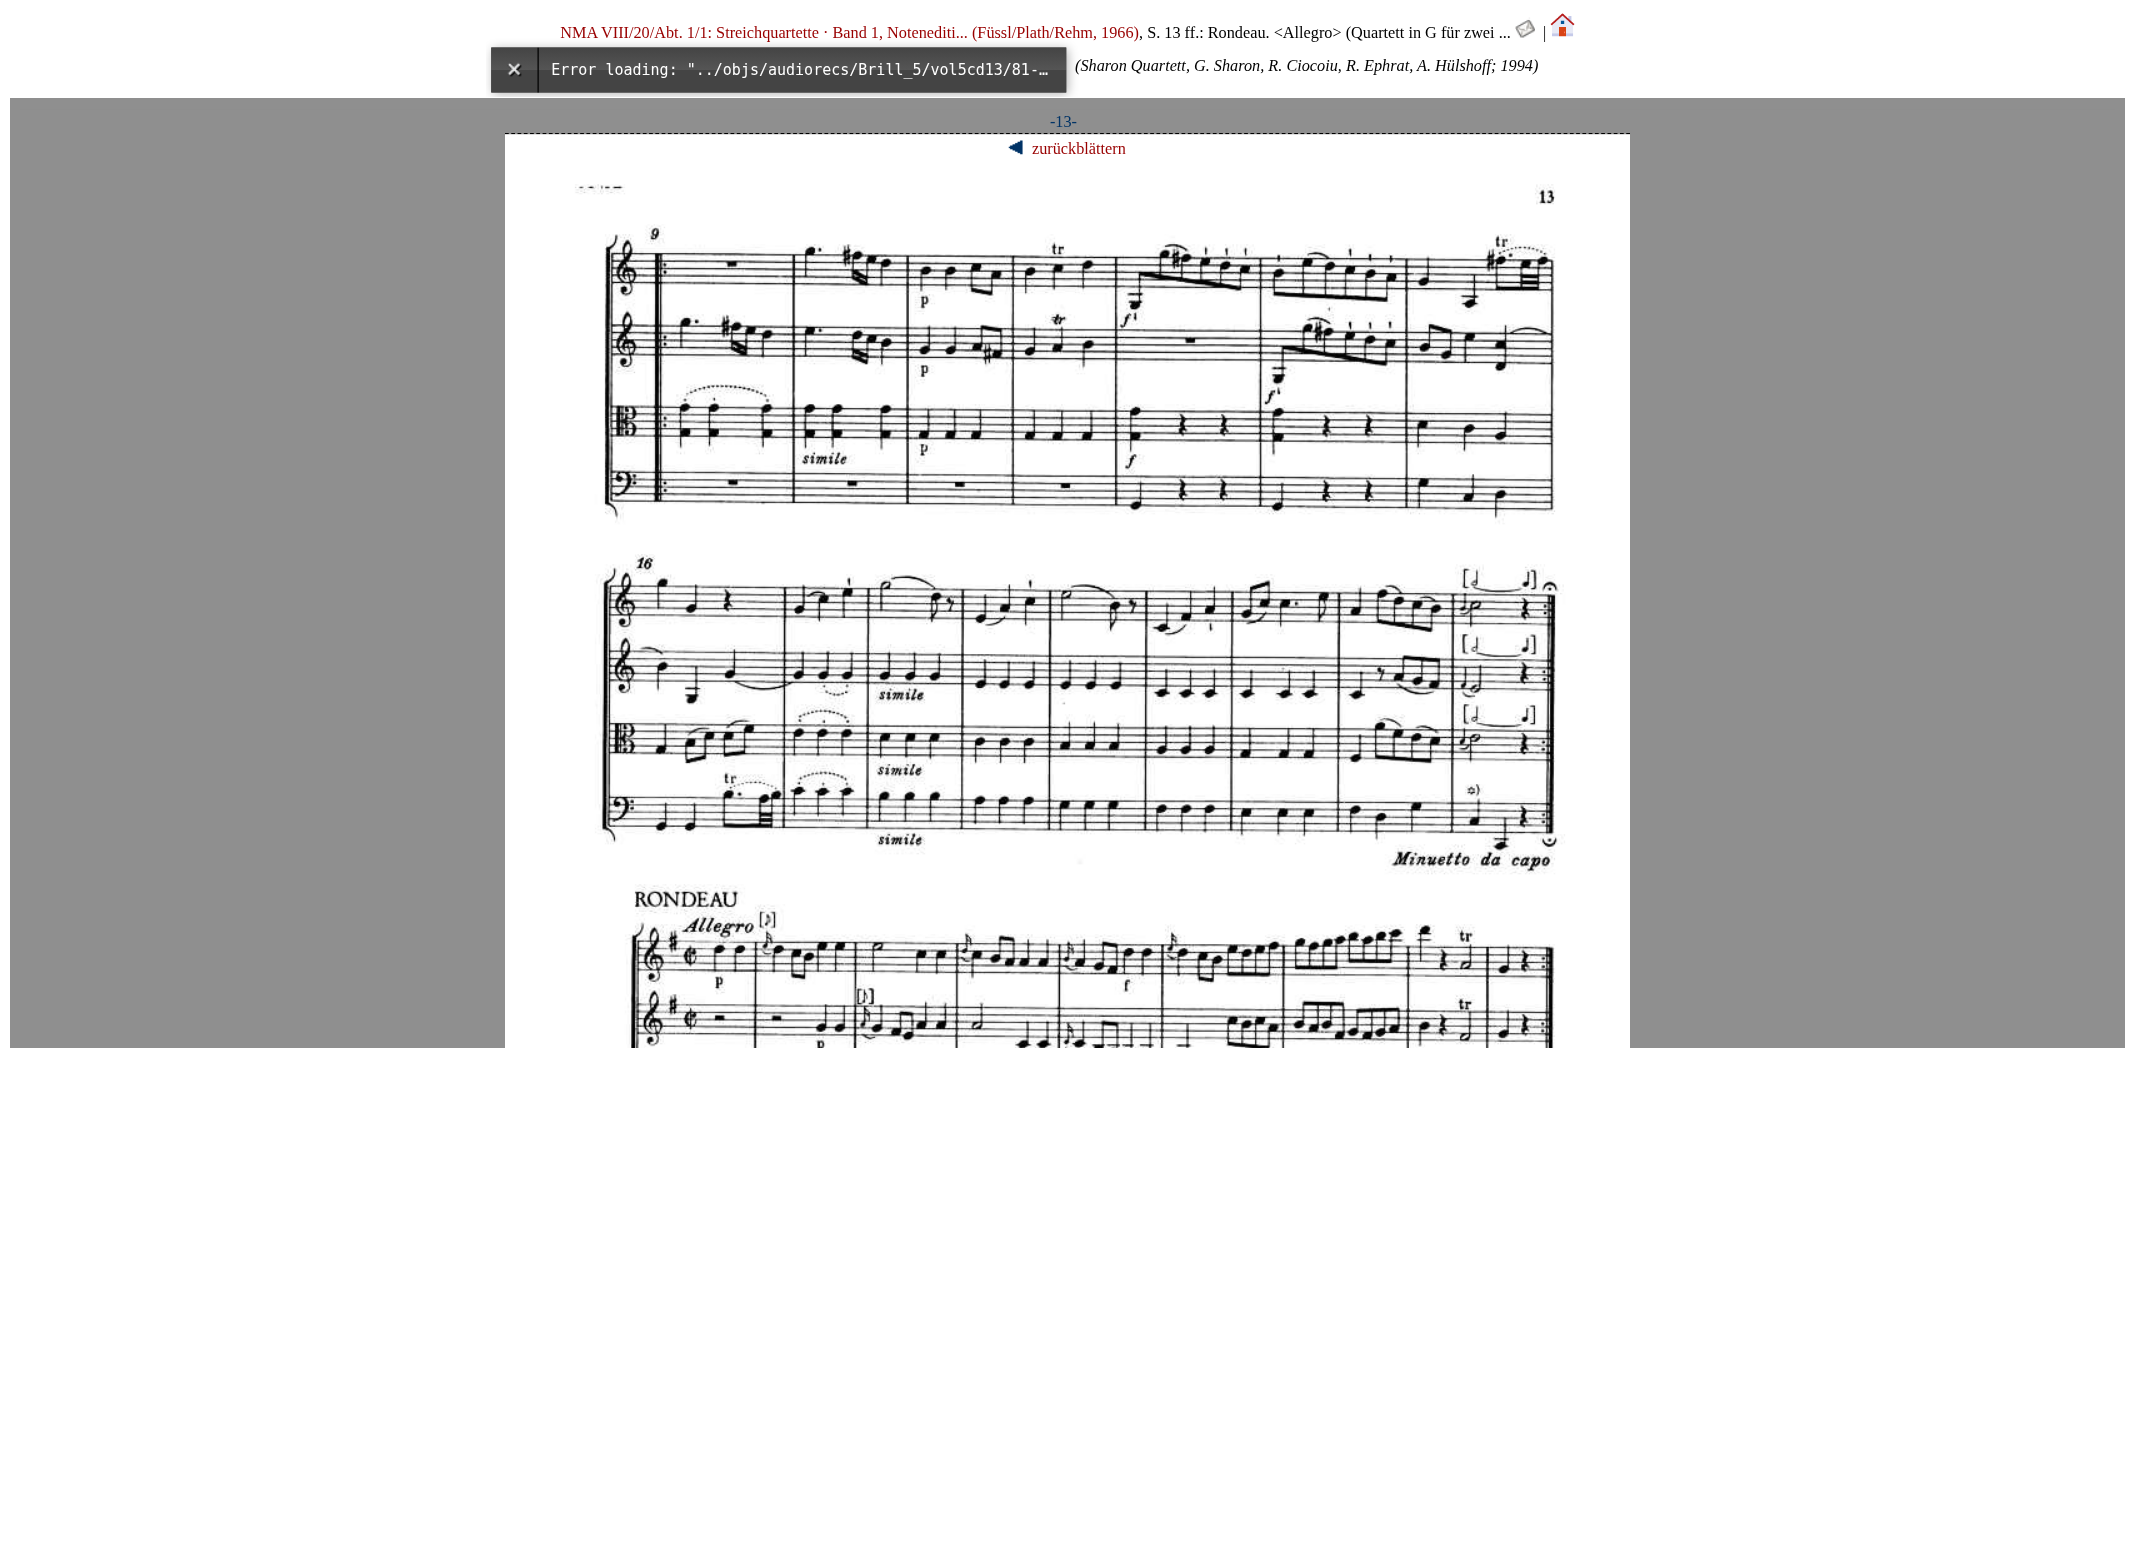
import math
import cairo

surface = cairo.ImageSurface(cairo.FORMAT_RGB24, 2135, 1541)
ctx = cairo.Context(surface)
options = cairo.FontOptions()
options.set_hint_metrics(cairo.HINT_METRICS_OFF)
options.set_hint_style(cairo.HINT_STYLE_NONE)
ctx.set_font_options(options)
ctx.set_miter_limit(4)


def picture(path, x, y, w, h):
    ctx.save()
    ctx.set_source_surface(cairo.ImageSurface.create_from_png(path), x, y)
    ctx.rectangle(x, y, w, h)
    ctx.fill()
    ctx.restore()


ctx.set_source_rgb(1, 1, 1)
ctx.paint()
picture("img1.png", 486, 13, 1089, 84)
picture("img2.png", 10, 98, 2115, 950)
surface.write_to_png("page.png")
